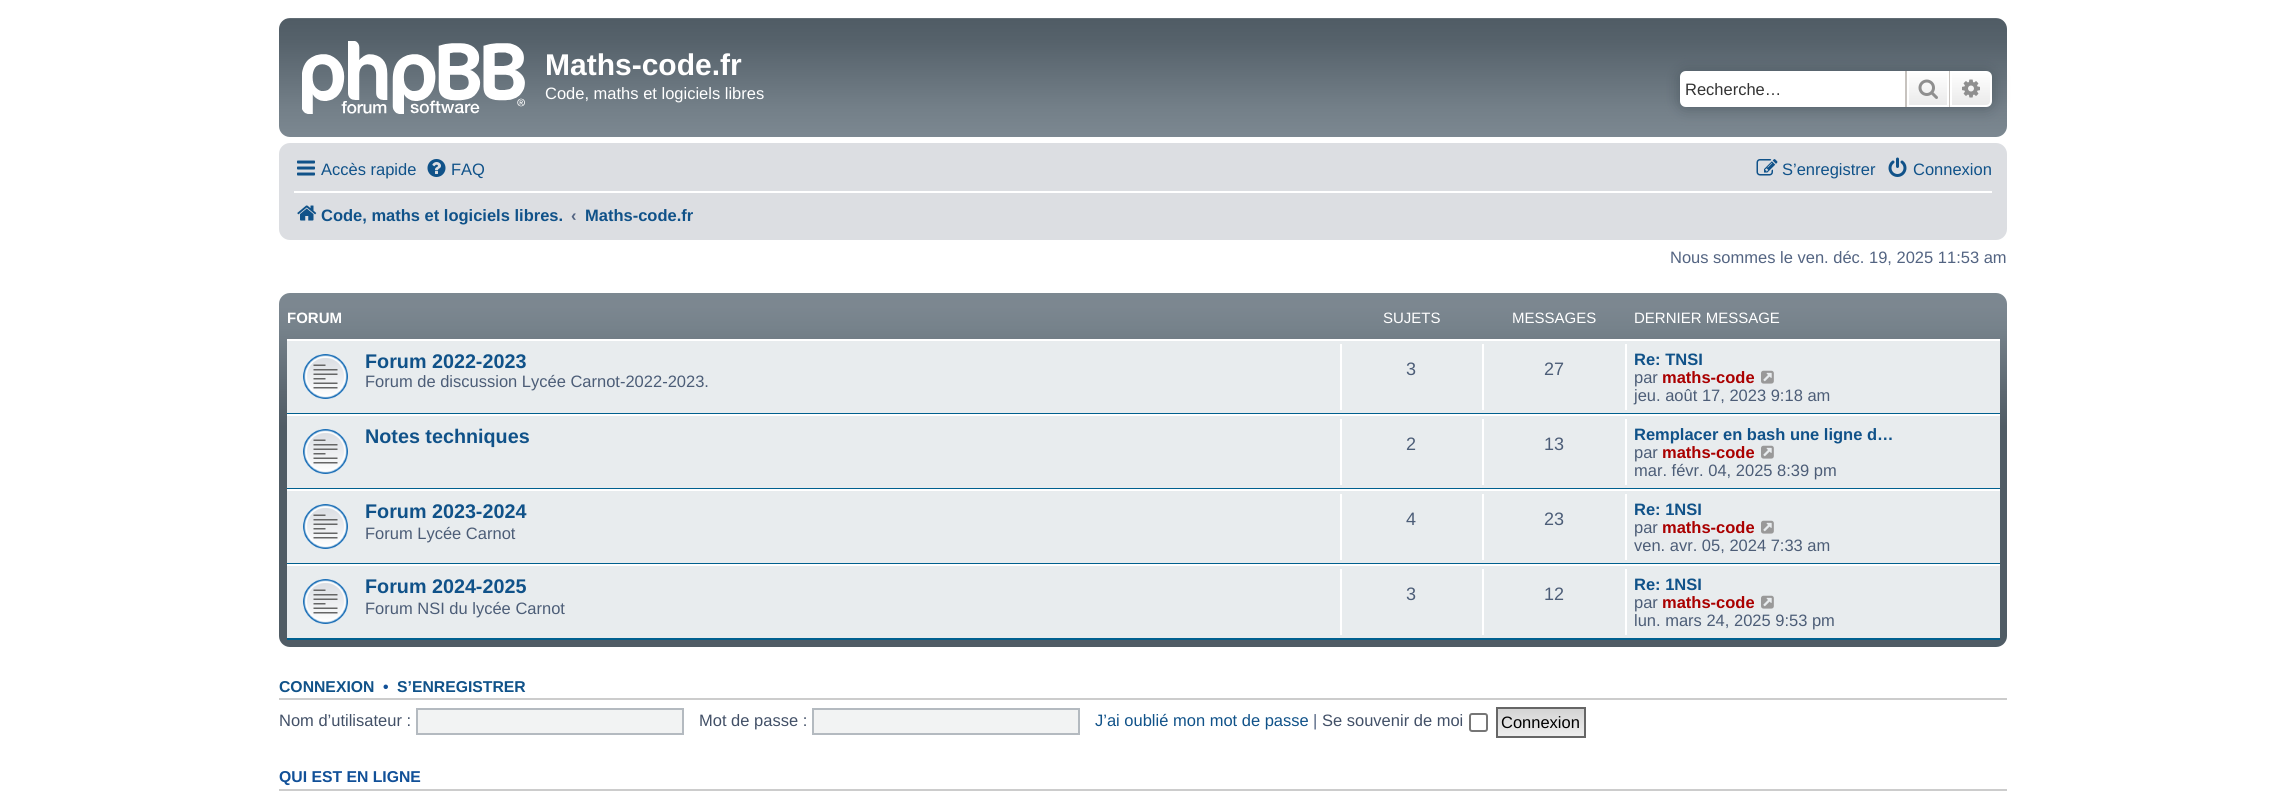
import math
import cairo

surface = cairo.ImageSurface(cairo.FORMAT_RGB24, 2286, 797)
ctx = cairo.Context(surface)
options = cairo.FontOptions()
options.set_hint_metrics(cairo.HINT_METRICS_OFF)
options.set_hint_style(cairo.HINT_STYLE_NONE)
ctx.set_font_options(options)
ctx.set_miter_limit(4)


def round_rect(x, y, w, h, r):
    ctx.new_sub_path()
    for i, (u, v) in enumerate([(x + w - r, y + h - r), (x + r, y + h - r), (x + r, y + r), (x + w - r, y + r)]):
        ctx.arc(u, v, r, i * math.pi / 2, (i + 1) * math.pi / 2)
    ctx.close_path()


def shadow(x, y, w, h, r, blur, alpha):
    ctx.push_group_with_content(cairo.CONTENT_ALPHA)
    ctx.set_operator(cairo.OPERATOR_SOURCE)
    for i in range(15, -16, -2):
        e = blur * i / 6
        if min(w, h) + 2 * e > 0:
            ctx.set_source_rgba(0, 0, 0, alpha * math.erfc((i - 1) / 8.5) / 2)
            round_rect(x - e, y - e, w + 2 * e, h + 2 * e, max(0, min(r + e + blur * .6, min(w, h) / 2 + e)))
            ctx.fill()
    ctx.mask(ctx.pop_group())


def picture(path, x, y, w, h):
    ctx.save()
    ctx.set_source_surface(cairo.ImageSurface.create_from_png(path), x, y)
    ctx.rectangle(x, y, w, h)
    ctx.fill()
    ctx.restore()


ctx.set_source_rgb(1, 1, 1)
ctx.paint()
gradient = cairo.LinearGradient(1143, 18, 1143, 137)
gradient.add_color_stop_rgba(0, 0.431, 0.467, 0.498, 1)
gradient.add_color_stop_rgba(0.01, 0.314, 0.361, 0.396, 1)
gradient.add_color_stop_rgba(0.2, 0.337, 0.384, 0.42, 1)
gradient.add_color_stop_rgba(0.75, 0.451, 0.498, 0.533, 1)
gradient.add_color_stop_rgba(1, 0.486, 0.533, 0.569, 1)
ctx.set_source(gradient)
round_rect(279, 18, 1728, 119, 11)
ctx.fill()
picture("img1.png", 302, 41, 223, 73)
ctx.select_font_face("Liberation Sans", cairo.FONT_SLANT_NORMAL, cairo.FONT_WEIGHT_BOLD)
ctx.set_font_size(30)
ctx.set_source_rgb(1, 1, 1)
ctx.move_to(545, 75)
ctx.show_text("Maths-code.fr")
ctx.select_font_face("Liberation Sans")
ctx.set_font_size(16.5)
ctx.move_to(545, 99)
ctx.show_text("Code, maths et logiciels libres")
ctx.set_source_rgb(0.314, 0.361, 0.396)
shadow(1680, 71, 312, 36, 6, 7.5, 1)
ctx.set_source_rgb(1, 1, 1)
ctx.new_path()
ctx.move_to(1686, 71)
ctx.line_to(1905, 71)
ctx.line_to(1905, 107)
ctx.line_to(1686, 107)
ctx.curve_to(1682.5, 107, 1680, 104.5, 1680, 101)
ctx.line_to(1680, 77)
ctx.curve_to(1680, 73.5, 1682.5, 71, 1686, 71)
ctx.close_path()
ctx.fill()
ctx.set_source_rgb(0.2, 0.2, 0.2)
ctx.move_to(1685, 95)
ctx.show_text("Recherche…")
gradient = cairo.LinearGradient(1928, 71, 1928, 107)
gradient.add_color_stop_rgba(0, 1, 1, 1, 1)
gradient.add_color_stop_rgba(1, 0.914, 0.914, 0.914, 1)
ctx.set_source(gradient)
ctx.rectangle(1909, 73, 38, 32)
ctx.fill()
ctx.rectangle(1908, 72, 40, 34)
ctx.set_source_rgb(1, 1, 1)
ctx.stroke()
ctx.set_source_rgb(0.78, 0.765, 0.749)
ctx.rectangle(1949, 71, 1, 36)
ctx.fill()
ctx.rectangle(1905, 71, 2, 36)
ctx.fill()
picture("img2.png", 1918, 79, 20, 20)
gradient = cairo.LinearGradient(1971, 71, 1971, 107)
gradient.add_color_stop_rgba(0, 1, 1, 1, 1)
gradient.add_color_stop_rgba(1, 0.914, 0.914, 0.914, 1)
ctx.set_source(gradient)
ctx.new_path()
ctx.move_to(1951, 72)
ctx.line_to(1986, 72)
ctx.curve_to(1989, 72, 1991, 74, 1991, 77)
ctx.line_to(1991, 101)
ctx.curve_to(1991, 104, 1989, 106, 1986, 106)
ctx.line_to(1951, 106)
ctx.close_path()
ctx.fill_preserve()
ctx.set_source_rgb(1, 1, 1)
ctx.stroke()
picture("img3.png", 1962, 79, 18, 19)
ctx.set_source_rgb(0.863, 0.871, 0.886)
round_rect(279, 143, 1728, 97, 11)
ctx.fill()
picture("img4.png", 297, 160, 18, 16)
ctx.set_source_rgb(0.063, 0.322, 0.537)
ctx.move_to(321, 175)
ctx.show_text("Accès rapide")
picture("img5.png", 427, 159, 19, 18)
ctx.move_to(451, 175)
ctx.show_text("FAQ")
picture("img6.png", 1756, 159, 22, 17)
ctx.move_to(1782, 175)
ctx.show_text("S’enregistrer")
picture("img7.png", 1888, 157, 19, 20)
ctx.move_to(1913, 175)
ctx.show_text("Connexion")
ctx.set_source_rgb(1, 1, 1)
ctx.rectangle(294, 191, 1698, 2)
ctx.fill()
picture("img8.png", 297, 205, 20, 16)
ctx.select_font_face("Liberation Sans", cairo.FONT_SLANT_NORMAL, cairo.FONT_WEIGHT_BOLD)
ctx.set_source_rgb(0.063, 0.322, 0.537)
ctx.move_to(321, 221)
ctx.show_text("Code, maths et logiciels libres.")
ctx.set_source_rgb(0.325, 0.392, 0.51)
ctx.move_to(571, 221)
ctx.show_text("‹")
ctx.set_source_rgb(0.063, 0.322, 0.537)
ctx.move_to(585, 221)
ctx.show_text("Maths-code.fr")
ctx.select_font_face("Liberation Sans")
ctx.set_source_rgb(0.325, 0.392, 0.51)
ctx.move_to(1670, 263)
ctx.show_text("Nous sommes le ven. déc. 19, 2025 11:53 am")
gradient = cairo.LinearGradient(1143, 292, 1143, 647)
gradient.add_color_stop_rgba(0, 0.486, 0.533, 0.569, 1)
gradient.add_color_stop_rgba(0.04, 0.486, 0.529, 0.565, 1)
gradient.add_color_stop_rgba(0.1, 0.463, 0.51, 0.545, 1)
gradient.add_color_stop_rgba(0.29, 0.357, 0.4, 0.435, 1)
gradient.add_color_stop_rgba(0.38, 0.314, 0.361, 0.396, 1)
gradient.add_color_stop_rgba(1, 0.314, 0.361, 0.396, 1)
ctx.set_source(gradient)
round_rect(279, 293, 1728, 354, 11)
ctx.fill()
ctx.select_font_face("Liberation Sans", cairo.FONT_SLANT_NORMAL, cairo.FONT_WEIGHT_BOLD)
ctx.set_font_size(15)
ctx.set_source_rgb(1, 1, 1)
ctx.move_to(287, 323)
ctx.show_text("FORUM")
ctx.select_font_face("Liberation Sans")
ctx.move_to(1383, 323)
ctx.show_text("SUJETS")
ctx.move_to(1512, 323)
ctx.show_text("MESSAGES")
ctx.move_to(1634, 323)
ctx.show_text("DERNIER MESSAGE")
ctx.set_source_rgb(0.91, 0.925, 0.933)
ctx.rectangle(287, 341, 1713, 72)
ctx.fill()
ctx.set_source_rgb(1, 1, 1)
ctx.rectangle(287, 339, 1713, 2)
ctx.fill()
ctx.set_source_rgb(0, 0.376, 0.561)
ctx.rectangle(287, 413, 1713, 1)
ctx.fill()
picture("img9.png", 303, 354, 45, 45)
ctx.select_font_face("Liberation Sans", cairo.FONT_SLANT_NORMAL, cairo.FONT_WEIGHT_BOLD)
ctx.set_font_size(19.75)
ctx.set_source_rgb(0.063, 0.322, 0.537)
ctx.move_to(365, 368)
ctx.show_text("Forum 2022-2023")
ctx.select_font_face("Liberation Sans")
ctx.set_font_size(16.5)
ctx.set_source_rgb(0.298, 0.365, 0.467)
ctx.move_to(365, 387)
ctx.show_text("Forum de discussion Lycée Carnot-2022-2023.")
ctx.set_source_rgb(1, 1, 1)
ctx.rectangle(1340, 344, 2, 66)
ctx.fill()
ctx.set_font_size(18)
ctx.set_source_rgb(0.298, 0.365, 0.467)
ctx.move_to(1406, 375)
ctx.show_text("3")
ctx.set_source_rgb(1, 1, 1)
ctx.rectangle(1482, 344, 2, 66)
ctx.fill()
ctx.set_source_rgb(0.298, 0.365, 0.467)
ctx.move_to(1544, 375)
ctx.show_text("27")
ctx.set_source_rgb(1, 1, 1)
ctx.rectangle(1625, 344, 2, 66)
ctx.fill()
ctx.select_font_face("Liberation Sans", cairo.FONT_SLANT_NORMAL, cairo.FONT_WEIGHT_BOLD)
ctx.set_font_size(16.5)
ctx.set_source_rgb(0.063, 0.322, 0.537)
ctx.move_to(1634, 365)
ctx.show_text("Re: TNSI")
ctx.select_font_face("Liberation Sans")
ctx.set_source_rgb(0.298, 0.365, 0.467)
ctx.move_to(1634, 383)
ctx.show_text("par")
ctx.select_font_face("Liberation Sans", cairo.FONT_SLANT_NORMAL, cairo.FONT_WEIGHT_BOLD)
ctx.set_source_rgb(0.667, 0, 0)
ctx.move_to(1662, 383)
ctx.show_text("maths-code")
picture("img10.png", 1761, 370, 13, 14)
ctx.select_font_face("Liberation Sans")
ctx.set_source_rgb(0.298, 0.365, 0.467)
ctx.move_to(1634, 401)
ctx.show_text("jeu. août 17, 2023 9:18 am")
ctx.set_source_rgb(0.91, 0.925, 0.933)
ctx.rectangle(287, 416, 1713, 72)
ctx.fill()
ctx.set_source_rgb(1, 1, 1)
ctx.rectangle(287, 414, 1713, 2)
ctx.fill()
ctx.set_source_rgb(0, 0.376, 0.561)
ctx.rectangle(287, 488, 1713, 1)
ctx.fill()
picture("img9.png", 303, 429, 45, 45)
ctx.select_font_face("Liberation Sans", cairo.FONT_SLANT_NORMAL, cairo.FONT_WEIGHT_BOLD)
ctx.set_font_size(19.75)
ctx.set_source_rgb(0.063, 0.322, 0.537)
ctx.move_to(365, 443)
ctx.show_text("Notes techniques")
ctx.set_source_rgb(1, 1, 1)
ctx.rectangle(1340, 419, 2, 66)
ctx.fill()
ctx.select_font_face("Liberation Sans")
ctx.set_font_size(18)
ctx.set_source_rgb(0.298, 0.365, 0.467)
ctx.move_to(1406, 450)
ctx.show_text("2")
ctx.set_source_rgb(1, 1, 1)
ctx.rectangle(1482, 419, 2, 66)
ctx.fill()
ctx.set_source_rgb(0.298, 0.365, 0.467)
ctx.move_to(1544, 450)
ctx.show_text("13")
ctx.set_source_rgb(1, 1, 1)
ctx.rectangle(1625, 419, 2, 66)
ctx.fill()
ctx.select_font_face("Liberation Sans", cairo.FONT_SLANT_NORMAL, cairo.FONT_WEIGHT_BOLD)
ctx.set_font_size(16.5)
ctx.set_source_rgb(0.063, 0.322, 0.537)
ctx.move_to(1634, 440)
ctx.show_text("Remplacer en bash une ligne d…")
ctx.select_font_face("Liberation Sans")
ctx.set_source_rgb(0.298, 0.365, 0.467)
ctx.move_to(1634, 458)
ctx.show_text("par")
ctx.select_font_face("Liberation Sans", cairo.FONT_SLANT_NORMAL, cairo.FONT_WEIGHT_BOLD)
ctx.set_source_rgb(0.667, 0, 0)
ctx.move_to(1662, 458)
ctx.show_text("maths-code")
picture("img10.png", 1761, 445, 13, 14)
ctx.select_font_face("Liberation Sans")
ctx.set_source_rgb(0.298, 0.365, 0.467)
ctx.move_to(1634, 476)
ctx.show_text("mar. févr. 04, 2025 8:39 pm")
ctx.set_source_rgb(0.91, 0.925, 0.933)
ctx.rectangle(287, 491, 1713, 72)
ctx.fill()
ctx.set_source_rgb(1, 1, 1)
ctx.rectangle(287, 489, 1713, 2)
ctx.fill()
ctx.set_source_rgb(0, 0.376, 0.561)
ctx.rectangle(287, 563, 1713, 1)
ctx.fill()
picture("img9.png", 303, 504, 45, 45)
ctx.select_font_face("Liberation Sans", cairo.FONT_SLANT_NORMAL, cairo.FONT_WEIGHT_BOLD)
ctx.set_font_size(19.75)
ctx.set_source_rgb(0.063, 0.322, 0.537)
ctx.move_to(365, 518)
ctx.show_text("Forum 2023-2024")
ctx.select_font_face("Liberation Sans")
ctx.set_font_size(16.5)
ctx.set_source_rgb(0.298, 0.365, 0.467)
ctx.move_to(365, 539)
ctx.show_text("Forum Lycée Carnot")
ctx.set_source_rgb(1, 1, 1)
ctx.rectangle(1340, 494, 2, 66)
ctx.fill()
ctx.set_font_size(18)
ctx.set_source_rgb(0.298, 0.365, 0.467)
ctx.move_to(1406, 525)
ctx.show_text("4")
ctx.set_source_rgb(1, 1, 1)
ctx.rectangle(1482, 494, 2, 66)
ctx.fill()
ctx.set_source_rgb(0.298, 0.365, 0.467)
ctx.move_to(1544, 525)
ctx.show_text("23")
ctx.set_source_rgb(1, 1, 1)
ctx.rectangle(1625, 494, 2, 66)
ctx.fill()
ctx.select_font_face("Liberation Sans", cairo.FONT_SLANT_NORMAL, cairo.FONT_WEIGHT_BOLD)
ctx.set_font_size(16.5)
ctx.set_source_rgb(0.063, 0.322, 0.537)
ctx.move_to(1634, 515)
ctx.show_text("Re: 1NSI")
ctx.select_font_face("Liberation Sans")
ctx.set_source_rgb(0.298, 0.365, 0.467)
ctx.move_to(1634, 533)
ctx.show_text("par")
ctx.select_font_face("Liberation Sans", cairo.FONT_SLANT_NORMAL, cairo.FONT_WEIGHT_BOLD)
ctx.set_source_rgb(0.667, 0, 0)
ctx.move_to(1662, 533)
ctx.show_text("maths-code")
picture("img10.png", 1761, 520, 13, 14)
ctx.select_font_face("Liberation Sans")
ctx.set_source_rgb(0.298, 0.365, 0.467)
ctx.move_to(1634, 551)
ctx.show_text("ven. avr. 05, 2024 7:33 am")
ctx.set_source_rgb(0.91, 0.925, 0.933)
ctx.rectangle(287, 566, 1713, 72)
ctx.fill()
ctx.set_source_rgb(1, 1, 1)
ctx.rectangle(287, 564, 1713, 2)
ctx.fill()
ctx.set_source_rgb(0, 0.376, 0.561)
ctx.rectangle(287, 638, 1713, 2)
ctx.fill()
picture("img9.png", 303, 579, 45, 45)
ctx.select_font_face("Liberation Sans", cairo.FONT_SLANT_NORMAL, cairo.FONT_WEIGHT_BOLD)
ctx.set_font_size(19.75)
ctx.set_source_rgb(0.063, 0.322, 0.537)
ctx.move_to(365, 593)
ctx.show_text("Forum 2024-2025")
ctx.select_font_face("Liberation Sans")
ctx.set_font_size(16.5)
ctx.set_source_rgb(0.298, 0.365, 0.467)
ctx.move_to(365, 614)
ctx.show_text("Forum NSI du lycée Carnot")
ctx.set_source_rgb(1, 1, 1)
ctx.rectangle(1340, 569, 2, 66)
ctx.fill()
ctx.set_font_size(18)
ctx.set_source_rgb(0.298, 0.365, 0.467)
ctx.move_to(1406, 600)
ctx.show_text("3")
ctx.set_source_rgb(1, 1, 1)
ctx.rectangle(1482, 569, 2, 66)
ctx.fill()
ctx.set_source_rgb(0.298, 0.365, 0.467)
ctx.move_to(1544, 600)
ctx.show_text("12")
ctx.set_source_rgb(1, 1, 1)
ctx.rectangle(1625, 569, 2, 66)
ctx.fill()
ctx.select_font_face("Liberation Sans", cairo.FONT_SLANT_NORMAL, cairo.FONT_WEIGHT_BOLD)
ctx.set_font_size(16.5)
ctx.set_source_rgb(0.063, 0.322, 0.537)
ctx.move_to(1634, 590)
ctx.show_text("Re: 1NSI")
ctx.select_font_face("Liberation Sans")
ctx.set_source_rgb(0.298, 0.365, 0.467)
ctx.move_to(1634, 608)
ctx.show_text("par")
ctx.select_font_face("Liberation Sans", cairo.FONT_SLANT_NORMAL, cairo.FONT_WEIGHT_BOLD)
ctx.set_source_rgb(0.667, 0, 0)
ctx.move_to(1662, 608)
ctx.show_text("maths-code")
picture("img10.png", 1761, 595, 13, 14)
ctx.select_font_face("Liberation Sans")
ctx.set_source_rgb(0.298, 0.365, 0.467)
ctx.move_to(1634, 626)
ctx.show_text("lun. mars 24, 2025 9:53 pm")
ctx.set_source_rgb(0.8, 0.8, 0.8)
ctx.rectangle(279, 698, 1728, 2)
ctx.fill()
ctx.select_font_face("Liberation Sans", cairo.FONT_SLANT_NORMAL, cairo.FONT_WEIGHT_BOLD)
ctx.set_font_size(15.75)
ctx.set_source_rgb(0.063, 0.322, 0.537)
ctx.move_to(279, 692)
ctx.show_text("CONNEXION")
ctx.set_source_rgb(0.067, 0.314, 0.596)
ctx.move_to(383, 692)
ctx.show_text("•")
ctx.set_source_rgb(0.063, 0.322, 0.537)
ctx.move_to(397, 692)
ctx.show_text("S’ENREGISTRER")
ctx.select_font_face("Liberation Sans")
ctx.set_font_size(16.5)
ctx.set_source_rgb(0.259, 0.314, 0.404)
ctx.move_to(279, 726)
ctx.show_text("Nom d’utilisateur :")
ctx.set_source_rgb(0.949, 0.953, 0.953)
ctx.rectangle(417, 709, 266, 25)
ctx.fill_preserve()
ctx.set_source_rgb(0.706, 0.729, 0.753)
ctx.stroke()
ctx.set_source_rgb(0.259, 0.314, 0.404)
ctx.move_to(699, 726)
ctx.show_text("Mot de passe :")
ctx.set_source_rgb(0.949, 0.953, 0.953)
ctx.rectangle(813, 709, 266, 25)
ctx.fill_preserve()
ctx.set_source_rgb(0.706, 0.729, 0.753)
ctx.stroke()
ctx.set_source_rgb(0.063, 0.322, 0.537)
ctx.move_to(1095, 726)
ctx.show_text("J’ai oublié mon mot de passe")
ctx.set_source_rgb(0.325, 0.392, 0.51)
ctx.move_to(1313, 726)
ctx.show_text("|")
ctx.set_source_rgb(0.259, 0.314, 0.404)
ctx.move_to(1322, 726)
ctx.show_text("Se souvenir de moi")
round_rect(1470, 714, 17, 17, 2)
ctx.set_source_rgb(0.463, 0.463, 0.463)
ctx.stroke()
gradient = cairo.LinearGradient(1541, 708, 1541, 737)
gradient.add_color_stop_rgba(0, 0.824, 0.824, 0.824, 1)
gradient.add_color_stop_rgba(1, 0.937, 0.937, 0.937, 1)
ctx.set_source(gradient)
ctx.rectangle(1498, 709, 86, 27)
ctx.fill()
ctx.rectangle(1497, 708, 88, 29)
ctx.set_source_rgb(0.4, 0.4, 0.4)
ctx.stroke()
ctx.set_source_rgb(0, 0, 0)
ctx.move_to(1501, 728)
ctx.show_text("Connexion")
ctx.set_source_rgb(0.8, 0.8, 0.8)
ctx.rectangle(279, 789, 1728, 2)
ctx.fill()
ctx.select_font_face("Liberation Sans", cairo.FONT_SLANT_NORMAL, cairo.FONT_WEIGHT_BOLD)
ctx.set_font_size(15.75)
ctx.set_source_rgb(0.067, 0.314, 0.596)
ctx.move_to(279, 782)
ctx.show_text("QUI EST EN LIGNE")
surface.write_to_png("page.png")
